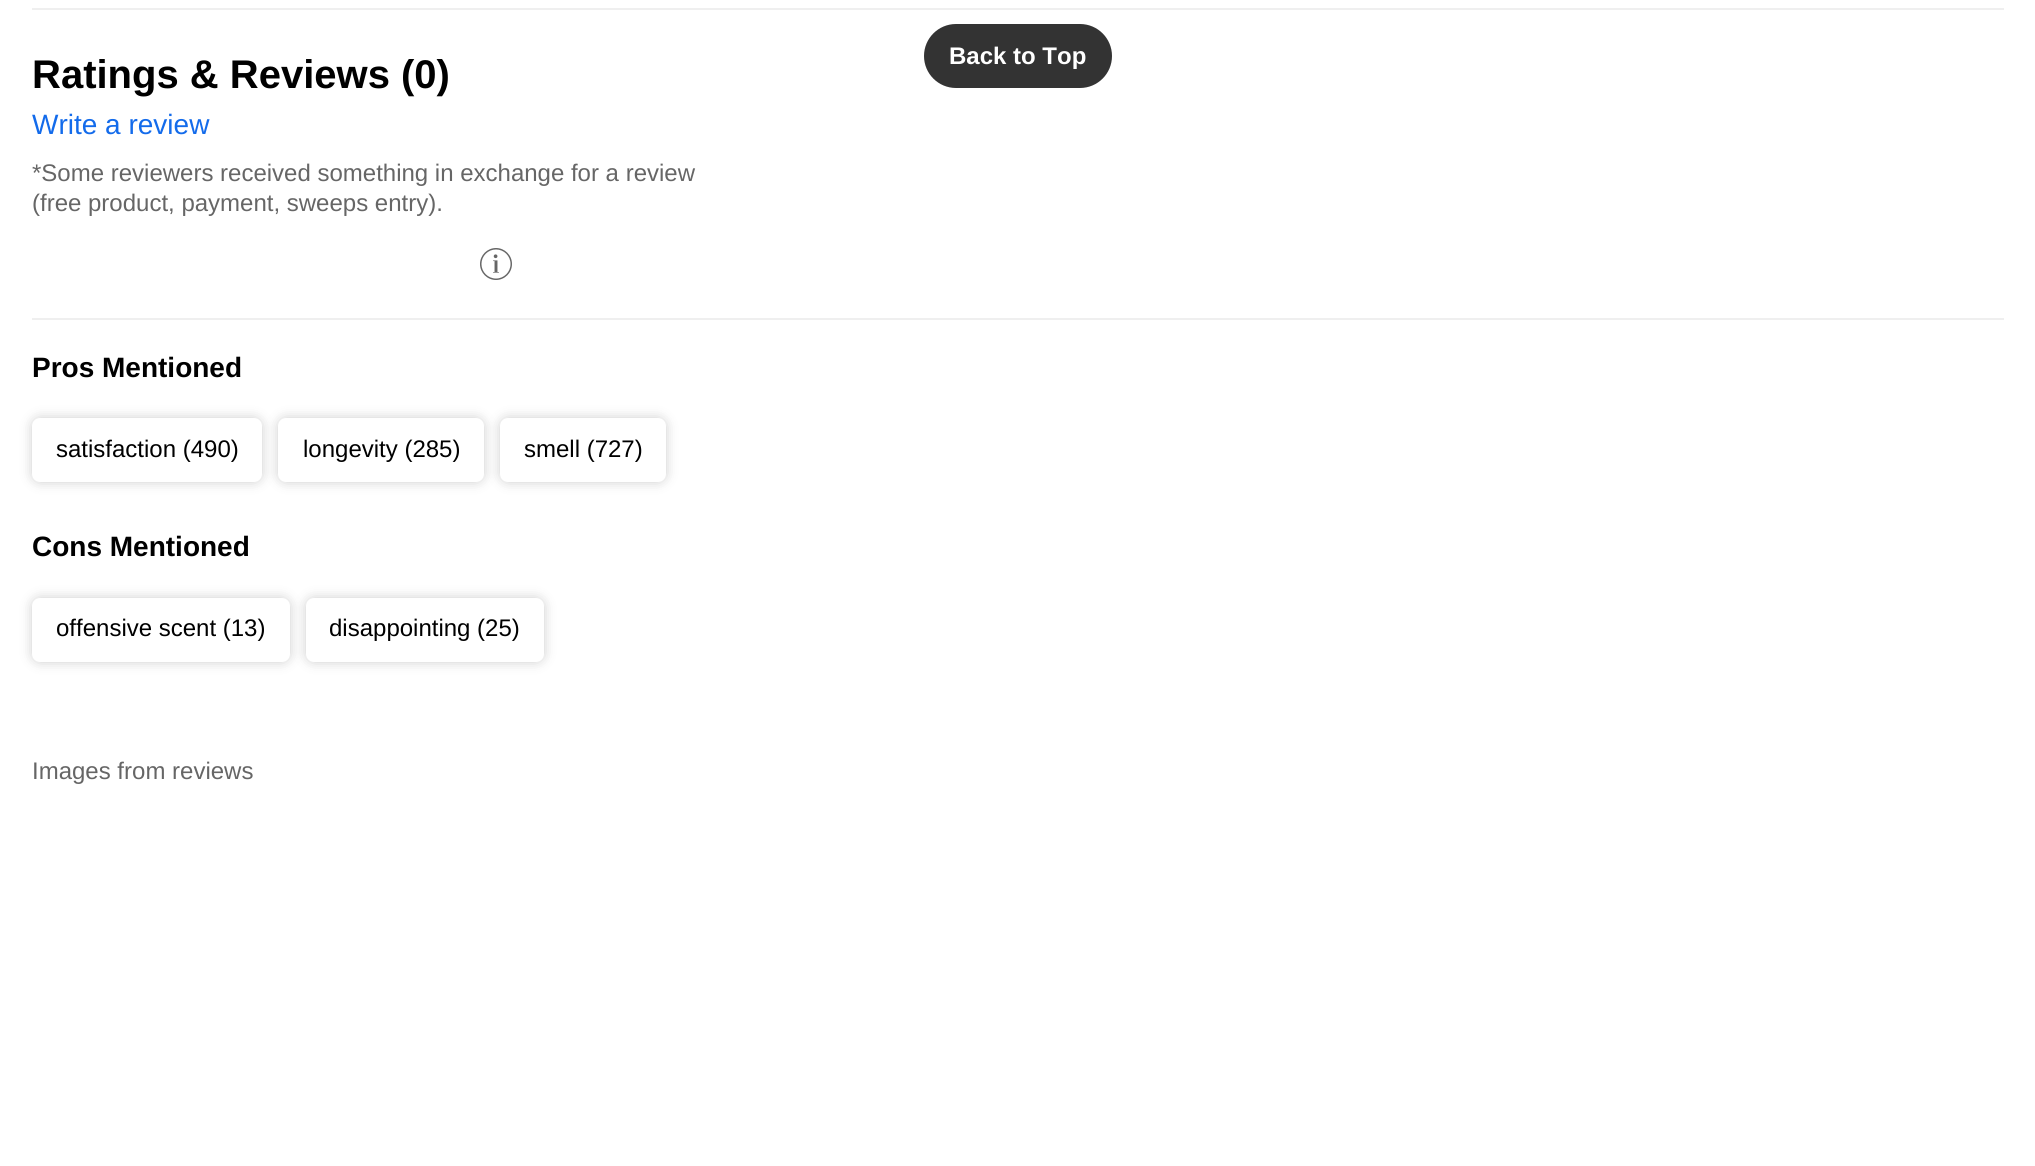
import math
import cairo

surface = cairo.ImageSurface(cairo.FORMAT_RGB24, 2035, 1166)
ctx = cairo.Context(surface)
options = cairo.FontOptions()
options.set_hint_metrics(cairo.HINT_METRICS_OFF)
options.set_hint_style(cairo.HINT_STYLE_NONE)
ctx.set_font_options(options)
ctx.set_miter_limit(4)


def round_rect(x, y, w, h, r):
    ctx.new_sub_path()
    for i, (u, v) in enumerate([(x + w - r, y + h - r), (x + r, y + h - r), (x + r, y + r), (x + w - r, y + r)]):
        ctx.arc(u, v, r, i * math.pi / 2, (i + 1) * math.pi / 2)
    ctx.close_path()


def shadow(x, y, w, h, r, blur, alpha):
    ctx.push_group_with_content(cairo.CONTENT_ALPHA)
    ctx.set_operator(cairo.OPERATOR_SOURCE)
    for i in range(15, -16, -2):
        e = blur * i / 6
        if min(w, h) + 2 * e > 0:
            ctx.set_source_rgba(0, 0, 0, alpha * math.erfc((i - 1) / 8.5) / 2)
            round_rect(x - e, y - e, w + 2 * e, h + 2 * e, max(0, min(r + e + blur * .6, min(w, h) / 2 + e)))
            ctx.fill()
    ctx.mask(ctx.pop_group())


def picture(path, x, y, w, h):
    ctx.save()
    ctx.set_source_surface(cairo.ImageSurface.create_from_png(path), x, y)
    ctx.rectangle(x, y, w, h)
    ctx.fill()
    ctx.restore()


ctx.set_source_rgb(1, 1, 1)
ctx.paint()
ctx.set_source_rgb(0.937, 0.937, 0.937)
ctx.rectangle(32, 8, 1972, 2)
ctx.fill()
ctx.select_font_face("Liberation Sans", cairo.FONT_SLANT_NORMAL, cairo.FONT_WEIGHT_BOLD)
ctx.set_font_size(40)
ctx.set_source_rgb(0, 0, 0)
ctx.move_to(32, 88)
ctx.show_text("Ratings & Reviews (0)")
ctx.select_font_face("Liberation Sans")
ctx.set_font_size(28)
ctx.set_source_rgb(0.075, 0.42, 0.918)
ctx.move_to(32, 134)
ctx.show_text("Write a review")
ctx.set_font_size(24)
ctx.set_source_rgb(0.4, 0.4, 0.4)
ctx.move_to(32, 181)
ctx.show_text("*Some reviewers received something in exchange for a review")
ctx.move_to(32, 211)
ctx.show_text("(free product, payment, sweeps entry).")
picture("img1.png", 480, 248, 32, 32)
ctx.set_source_rgb(0.937, 0.937, 0.937)
ctx.rectangle(32, 318, 1972, 2)
ctx.fill()
ctx.select_font_face("Liberation Sans", cairo.FONT_SLANT_NORMAL, cairo.FONT_WEIGHT_BOLD)
ctx.set_font_size(28)
ctx.set_source_rgb(0, 0, 0)
ctx.move_to(32, 377)
ctx.show_text("Pros Mentioned")
ctx.set_source_rgb(0, 0, 0)
shadow(32, 418, 230, 64, 8, 6, 0.2)
ctx.set_source_rgb(1, 1, 1)
round_rect(32, 418, 230, 64, 8)
ctx.fill()
ctx.select_font_face("Liberation Sans")
ctx.set_font_size(24)
ctx.set_source_rgb(0, 0, 0)
ctx.move_to(56, 457)
ctx.show_text("satisfaction (490)")
ctx.set_source_rgb(0, 0, 0)
shadow(278, 418, 206, 64, 8, 6, 0.2)
ctx.set_source_rgb(1, 1, 1)
round_rect(278, 418, 206, 64, 8)
ctx.fill()
ctx.set_source_rgb(0, 0, 0)
ctx.move_to(303, 457)
ctx.show_text("longevity (285)")
ctx.set_source_rgb(0, 0, 0)
shadow(500, 418, 166, 64, 8, 6, 0.2)
ctx.set_source_rgb(1, 1, 1)
round_rect(500, 418, 166, 64, 8)
ctx.fill()
ctx.set_source_rgb(0, 0, 0)
ctx.move_to(524, 457)
ctx.show_text("smell (727)")
ctx.select_font_face("Liberation Sans", cairo.FONT_SLANT_NORMAL, cairo.FONT_WEIGHT_BOLD)
ctx.set_font_size(28)
ctx.move_to(32, 556)
ctx.show_text("Cons Mentioned")
ctx.set_source_rgb(0, 0, 0)
shadow(32, 598, 258, 64, 8, 6, 0.2)
ctx.set_source_rgb(1, 1, 1)
round_rect(32, 598, 258, 64, 8)
ctx.fill()
ctx.select_font_face("Liberation Sans")
ctx.set_font_size(24)
ctx.set_source_rgb(0, 0, 0)
ctx.move_to(56, 636)
ctx.show_text("offensive scent (13)")
ctx.set_source_rgb(0, 0, 0)
shadow(306, 598, 238, 64, 8, 6, 0.2)
ctx.set_source_rgb(1, 1, 1)
round_rect(306, 598, 238, 64, 8)
ctx.fill()
ctx.set_source_rgb(0, 0, 0)
ctx.move_to(329, 636)
ctx.show_text("disappointing (25)")
ctx.set_source_rgb(0.4, 0.4, 0.4)
ctx.move_to(32, 779)
ctx.show_text("Images from reviews")
ctx.set_source_rgb(0.2, 0.2, 0.2)
round_rect(924, 24, 188, 64, 32)
ctx.fill()
ctx.select_font_face("Liberation Sans", cairo.FONT_SLANT_NORMAL, cairo.FONT_WEIGHT_BOLD)
ctx.set_source_rgb(1, 1, 1)
ctx.move_to(949, 64)
ctx.show_text("Back to Top")
surface.write_to_png("page.png")
